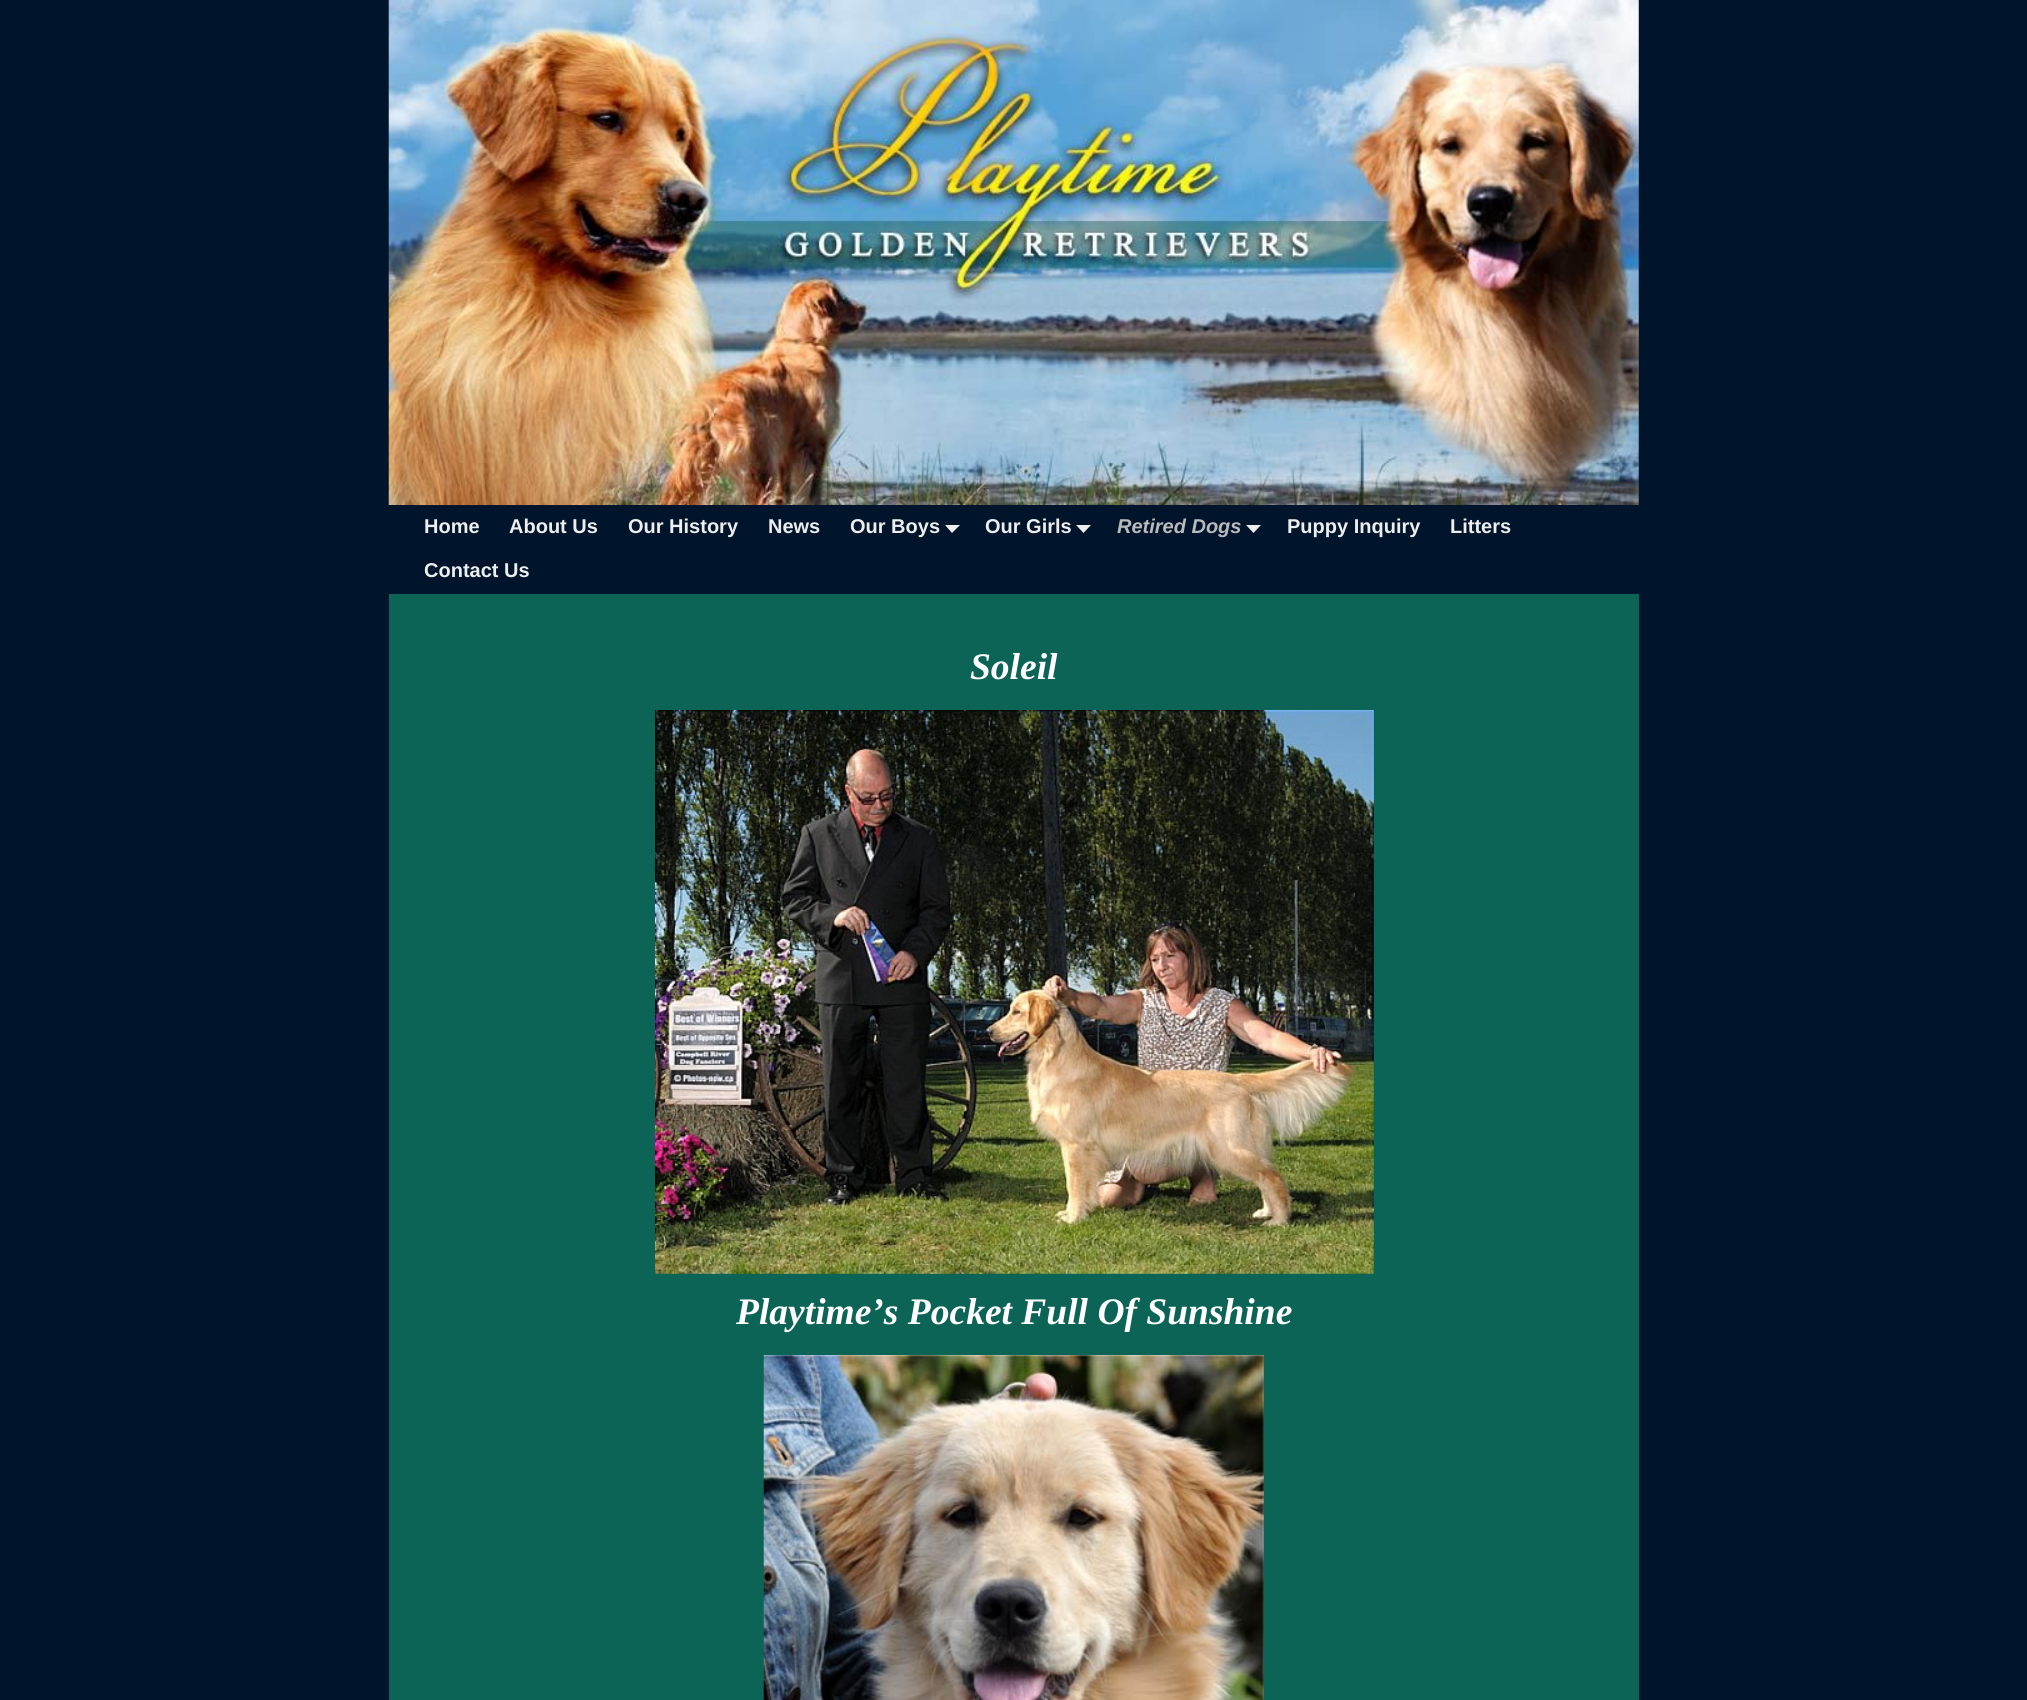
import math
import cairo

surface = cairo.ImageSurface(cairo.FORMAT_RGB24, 2027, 1700)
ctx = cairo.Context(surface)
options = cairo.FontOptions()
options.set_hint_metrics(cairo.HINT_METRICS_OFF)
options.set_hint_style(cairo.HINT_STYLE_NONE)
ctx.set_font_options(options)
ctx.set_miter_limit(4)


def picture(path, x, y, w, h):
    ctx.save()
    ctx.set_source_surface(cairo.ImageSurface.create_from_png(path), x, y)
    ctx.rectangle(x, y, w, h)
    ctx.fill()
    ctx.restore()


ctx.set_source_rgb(0, 0.082, 0.169)
ctx.paint()
picture("img1.png", 388, 0, 1251, 505)
ctx.select_font_face("Liberation Sans", cairo.FONT_SLANT_NORMAL, cairo.FONT_WEIGHT_BOLD)
ctx.set_font_size(20)
ctx.set_source_rgb(0.933, 0.933, 0.933)
ctx.move_to(424, 533)
ctx.show_text("Home")
ctx.move_to(509, 533)
ctx.show_text("About Us")
ctx.move_to(628, 533)
ctx.show_text("Our History")
ctx.move_to(768, 533)
ctx.show_text("News")
ctx.move_to(850, 533)
ctx.show_text("Our Boys")
ctx.new_path()
ctx.move_to(945, 525)
ctx.line_to(960, 525)
ctx.line_to(952, 533)
ctx.close_path()
ctx.fill()
ctx.move_to(985, 533)
ctx.show_text("Our Girls")
ctx.new_path()
ctx.move_to(1076, 525)
ctx.line_to(1091, 525)
ctx.line_to(1083.5, 533)
ctx.close_path()
ctx.fill()
ctx.select_font_face("Liberation Sans", cairo.FONT_SLANT_ITALIC, cairo.FONT_WEIGHT_BOLD)
ctx.set_source_rgb(0.729, 0.729, 0.729)
ctx.move_to(1117, 533)
ctx.show_text("Retired Dogs")
ctx.set_source_rgb(0.933, 0.933, 0.933)
ctx.new_path()
ctx.move_to(1246, 525)
ctx.line_to(1261, 525)
ctx.line_to(1253.5, 533)
ctx.close_path()
ctx.fill()
ctx.select_font_face("Liberation Sans", cairo.FONT_SLANT_NORMAL, cairo.FONT_WEIGHT_BOLD)
ctx.move_to(1287, 533)
ctx.show_text("Puppy Inquiry")
ctx.move_to(1450, 533)
ctx.show_text("Litters")
ctx.move_to(424, 577)
ctx.show_text("Contact Us")
ctx.set_source_rgb(0.047, 0.392, 0.337)
ctx.rectangle(389, 594, 1250, 1106)
ctx.fill()
ctx.select_font_face("Liberation Serif", cairo.FONT_SLANT_ITALIC, cairo.FONT_WEIGHT_BOLD)
ctx.set_font_size(37.5)
ctx.set_source_rgb(1, 1, 1)
ctx.move_to(970, 679)
ctx.show_text("Soleil")
picture("img2.png", 655, 710, 719, 564)
ctx.move_to(736, 1324)
ctx.show_text("Playtime’s Pocket Full Of Sunshine")
picture("img3.png", 763, 1355, 501, 345)
surface.write_to_png("page.png")
